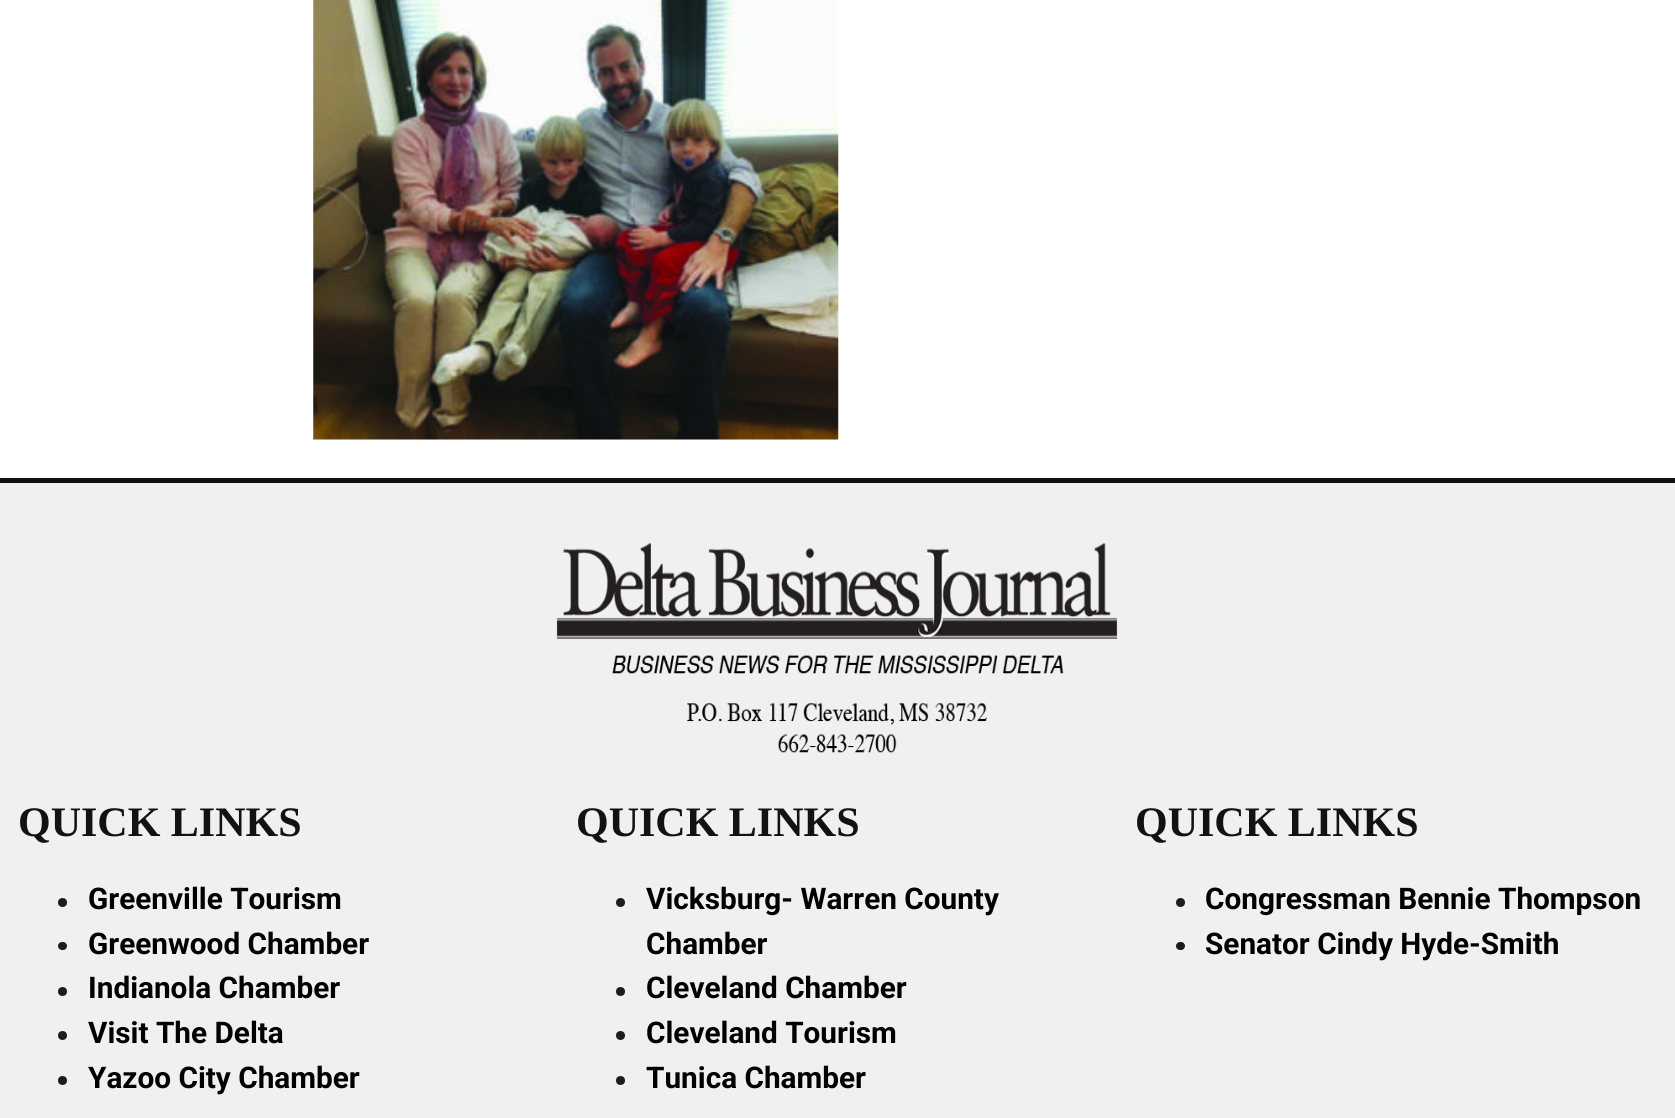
import math
import cairo

surface = cairo.ImageSurface(cairo.FORMAT_RGB24, 1675, 1118)
ctx = cairo.Context(surface)
options = cairo.FontOptions()
options.set_hint_metrics(cairo.HINT_METRICS_OFF)
options.set_hint_style(cairo.HINT_STYLE_NONE)
ctx.set_font_options(options)
ctx.set_miter_limit(4)


def round_rect(x, y, w, h, r):
    ctx.new_sub_path()
    for i, (u, v) in enumerate([(x + w - r, y + h - r), (x + r, y + h - r), (x + r, y + r), (x + w - r, y + r)]):
        ctx.arc(u, v, r, i * math.pi / 2, (i + 1) * math.pi / 2)
    ctx.close_path()


def picture(path, x, y, w, h):
    ctx.save()
    ctx.set_source_surface(cairo.ImageSurface.create_from_png(path), x, y)
    ctx.rectangle(x, y, w, h)
    ctx.fill()
    ctx.restore()


ctx.set_source_rgb(1, 1, 1)
ctx.paint()
picture("img1.png", 313, 0, 526, 440)
ctx.set_source_rgb(0.941, 0.941, 0.941)
ctx.rectangle(0, 483, 1675, 635)
ctx.fill()
ctx.set_source_rgb(0.063, 0.063, 0.067)
ctx.rectangle(0, 478, 1675, 5)
ctx.fill()
picture("img2.png", 556, 543, 562, 210)
ctx.select_font_face("Liberation Serif", cairo.FONT_SLANT_NORMAL, cairo.FONT_WEIGHT_BOLD)
ctx.set_font_size(42)
ctx.set_source_rgb(0.067, 0.071, 0.071)
ctx.move_to(18, 836)
ctx.show_text("QUICK LINKS")
ctx.set_source_rgb(0.114, 0.106, 0.106)
ctx.new_path()
ctx.arc(62.5, 902.5, 4.5, 0, 2 * math.pi)
ctx.fill()
ctx.select_font_face("Roboto", cairo.FONT_SLANT_NORMAL, cairo.FONT_WEIGHT_BOLD)
ctx.set_font_size(29.75)
ctx.set_source_rgb(0, 0, 0)
ctx.move_to(88, 909)
ctx.show_text("Greenville Tourism")
ctx.set_source_rgb(0.114, 0.106, 0.106)
round_rect(58, 942, 9, 8, 4)
ctx.fill()
ctx.set_source_rgb(0, 0, 0)
ctx.move_to(88, 954)
ctx.show_text("Greenwood Chamber")
ctx.set_source_rgb(0.114, 0.106, 0.106)
ctx.new_path()
ctx.arc(62.5, 991.5, 4.5, 0, 2 * math.pi)
ctx.fill()
ctx.set_source_rgb(0, 0, 0)
ctx.move_to(88, 998)
ctx.show_text("Indianola Chamber")
ctx.set_source_rgb(0.114, 0.106, 0.106)
ctx.new_path()
ctx.arc(62.5, 1035.5, 4.5, 0, 2 * math.pi)
ctx.fill()
ctx.set_source_rgb(0, 0, 0)
ctx.move_to(88, 1043)
ctx.show_text("Visit The Delta")
ctx.set_source_rgb(0.114, 0.106, 0.106)
ctx.new_path()
ctx.arc(62.5, 1080.5, 4.5, 0, 2 * math.pi)
ctx.fill()
ctx.set_source_rgb(0, 0, 0)
ctx.move_to(88, 1088)
ctx.show_text("Yazoo City Chamber")
ctx.select_font_face("Liberation Serif", cairo.FONT_SLANT_NORMAL, cairo.FONT_WEIGHT_BOLD)
ctx.set_font_size(42)
ctx.set_source_rgb(0.067, 0.071, 0.071)
ctx.move_to(576, 836)
ctx.show_text("QUICK LINKS")
ctx.set_source_rgb(0.114, 0.106, 0.106)
ctx.new_path()
ctx.arc(620.5, 902.5, 4.5, 0, 2 * math.pi)
ctx.fill()
ctx.select_font_face("Roboto", cairo.FONT_SLANT_NORMAL, cairo.FONT_WEIGHT_BOLD)
ctx.set_font_size(29.75)
ctx.set_source_rgb(0, 0, 0)
ctx.move_to(646, 909)
ctx.show_text("Vicksburg- Warren County")
ctx.move_to(646, 954)
ctx.show_text("Chamber")
ctx.set_source_rgb(0.114, 0.106, 0.106)
ctx.new_path()
ctx.arc(620.5, 991.5, 4.5, 0, 2 * math.pi)
ctx.fill()
ctx.set_source_rgb(0, 0, 0)
ctx.move_to(646, 998)
ctx.show_text("Cleveland Chamber")
ctx.set_source_rgb(0.114, 0.106, 0.106)
ctx.new_path()
ctx.arc(620.5, 1035.5, 4.5, 0, 2 * math.pi)
ctx.fill()
ctx.set_source_rgb(0, 0, 0)
ctx.move_to(646, 1043)
ctx.show_text("Cleveland Tourism")
ctx.set_source_rgb(0.114, 0.106, 0.106)
ctx.new_path()
ctx.arc(620.5, 1080.5, 4.5, 0, 2 * math.pi)
ctx.fill()
ctx.set_source_rgb(0, 0, 0)
ctx.move_to(646, 1088)
ctx.show_text("Tunica Chamber")
ctx.select_font_face("Liberation Serif", cairo.FONT_SLANT_NORMAL, cairo.FONT_WEIGHT_BOLD)
ctx.set_font_size(42)
ctx.set_source_rgb(0.067, 0.071, 0.071)
ctx.move_to(1135, 836)
ctx.show_text("QUICK LINKS")
ctx.set_source_rgb(0.114, 0.106, 0.106)
ctx.new_path()
ctx.arc(1180.5, 902.5, 4.5, 0, 2 * math.pi)
ctx.fill()
ctx.select_font_face("Roboto", cairo.FONT_SLANT_NORMAL, cairo.FONT_WEIGHT_BOLD)
ctx.set_font_size(29.75)
ctx.set_source_rgb(0, 0, 0)
ctx.move_to(1205, 909)
ctx.show_text("Congressman Bennie Thompson")
ctx.set_source_rgb(0.114, 0.106, 0.106)
round_rect(1176, 942, 9, 8, 4)
ctx.fill()
ctx.set_source_rgb(0, 0, 0)
ctx.move_to(1205, 954)
ctx.show_text("Senator Cindy Hyde-Smith")
surface.write_to_png("page.png")
